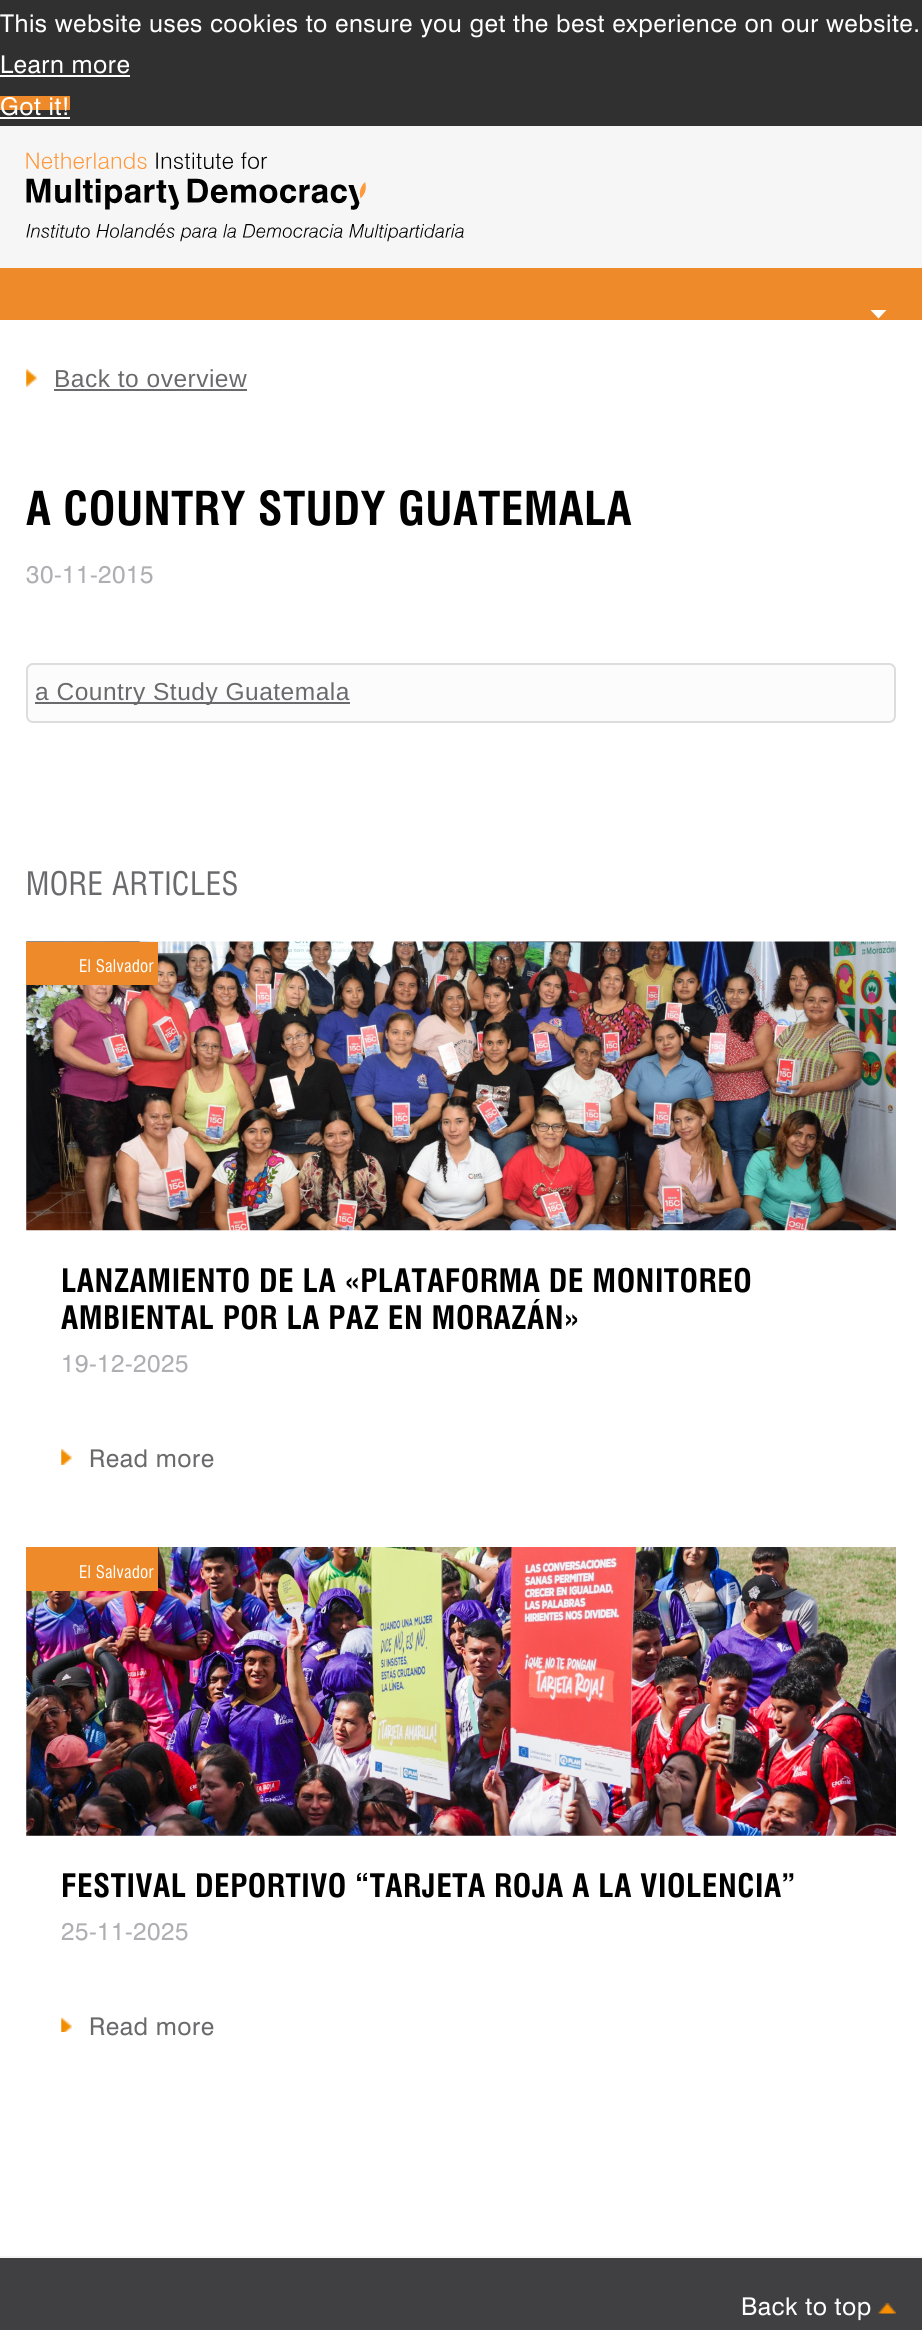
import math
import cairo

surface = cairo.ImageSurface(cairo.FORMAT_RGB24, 922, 2330)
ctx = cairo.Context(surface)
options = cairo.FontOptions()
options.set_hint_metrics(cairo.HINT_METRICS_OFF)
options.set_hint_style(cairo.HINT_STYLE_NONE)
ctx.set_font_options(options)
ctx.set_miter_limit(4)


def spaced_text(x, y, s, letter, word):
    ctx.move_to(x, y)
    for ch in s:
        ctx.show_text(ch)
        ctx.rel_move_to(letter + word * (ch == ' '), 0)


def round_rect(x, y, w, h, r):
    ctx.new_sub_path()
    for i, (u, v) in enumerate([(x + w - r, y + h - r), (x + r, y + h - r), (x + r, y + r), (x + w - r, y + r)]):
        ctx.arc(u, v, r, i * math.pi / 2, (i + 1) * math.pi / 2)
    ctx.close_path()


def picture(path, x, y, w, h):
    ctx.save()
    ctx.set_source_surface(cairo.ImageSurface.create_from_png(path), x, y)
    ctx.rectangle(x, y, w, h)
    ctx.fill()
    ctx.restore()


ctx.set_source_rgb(0.961, 0.961, 0.961)
ctx.paint()
ctx.set_source_rgb(0.188, 0.188, 0.192)
ctx.rectangle(0, 0, 922, 126)
ctx.fill()
ctx.select_font_face("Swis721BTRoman")
ctx.set_font_size(24.5)
ctx.set_source_rgb(1, 1, 1)
spaced_text(0, 32, "This website uses cookies to ensure you get the best experience on our website.", 0.5, 0)
spaced_text(0, 73, "Learn more", 0.5, 0)
ctx.rectangle(0, 75, 130, 2)
ctx.fill()
ctx.set_source_rgb(0.933, 0.541, 0.161)
ctx.rectangle(0, 96, 70, 14)
ctx.fill()
ctx.set_source_rgb(1, 1, 1)
spaced_text(0, 115, "Got it!", 0.5, 0)
ctx.rectangle(0, 117, 70, 2)
ctx.fill()
picture("img1.png", 26, 152, 438, 90)
ctx.set_source_rgb(0.933, 0.541, 0.161)
ctx.rectangle(0, 268, 922, 52)
ctx.fill()
ctx.set_source_rgb(1, 1, 1)
ctx.new_path()
ctx.move_to(886.5, 310)
ctx.line_to(878.5, 318.5)
ctx.line_to(870.5, 310)
ctx.close_path()
ctx.fill()
ctx.rectangle(0, 320, 922, 1936)
ctx.fill()
picture("img2.png", 26, 369, 11, 18)
ctx.select_font_face("Liberation Sans")
ctx.set_source_rgb(0.416, 0.412, 0.424)
spaced_text(54, 387, "Back to overview", 0.5, 0)
ctx.rectangle(54, 389, 193, 2)
ctx.fill()
ctx.select_font_face("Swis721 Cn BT", cairo.FONT_SLANT_NORMAL, cairo.FONT_WEIGHT_BOLD)
ctx.set_font_size(45.5)
ctx.set_source_rgb(0, 0, 0)
spaced_text(26, 525, "A COUNTRY STUDY GUATEMALA", 0.5, 0)
ctx.select_font_face("Swis721BTRoman")
ctx.set_font_size(24.5)
ctx.set_source_rgb(0.69, 0.682, 0.702)
spaced_text(26, 583, "30-11-2015", 0.5, 0)
ctx.set_source_rgb(0.988, 0.988, 0.988)
round_rect(27, 664, 868, 58, 6)
ctx.fill_preserve()
ctx.set_source_rgb(0.867, 0.867, 0.867)
ctx.stroke()
ctx.set_source_rgb(0.416, 0.412, 0.424)
ctx.rectangle(35, 702, 315, 2)
ctx.fill()
ctx.select_font_face("Liberation Sans")
spaced_text(35, 700, "a Country Study Guatemala", 0.5, 0)
ctx.select_font_face("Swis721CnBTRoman")
ctx.set_font_size(31.5)
spaced_text(26, 895, "MORE ARTICLES", 0.5, 0)
picture("img3.png", 26, 941, 870, 290)
ctx.set_source_rgb(0.933, 0.541, 0.161)
ctx.rectangle(26, 942, 132, 43)
ctx.fill()
ctx.set_font_size(17)
ctx.set_source_rgb(1, 1, 1)
spaced_text(79, 972, "El Salvador", 0.25, 0)
ctx.select_font_face("Swis721 Cn BT", cairo.FONT_SLANT_NORMAL, cairo.FONT_WEIGHT_BOLD)
ctx.set_font_size(31.5)
ctx.set_source_rgb(0, 0, 0)
spaced_text(61, 1292, "LANZAMIENTO DE LA «PLATAFORMA DE MONITOREO", 0.5, 0)
spaced_text(61, 1329, "AMBIENTAL POR LA PAZ EN MORAZÁN»", 0.5, 0)
ctx.select_font_face("Swis721BTRoman")
ctx.set_font_size(24.5)
ctx.set_source_rgb(0.69, 0.682, 0.702)
spaced_text(61, 1372, "19-12-2025", 0.5, 0)
picture("img4.png", 61, 1449, 11, 16)
ctx.set_source_rgb(0.416, 0.412, 0.424)
spaced_text(89, 1467, "Read more", 0.5, 0)
picture("img5.png", 26, 1547, 870, 289)
ctx.set_source_rgb(0.933, 0.541, 0.161)
ctx.rectangle(26, 1547, 132, 44)
ctx.fill()
ctx.select_font_face("Swis721CnBTRoman")
ctx.set_font_size(17)
ctx.set_source_rgb(1, 1, 1)
spaced_text(79, 1578, "El Salvador", 0.25, 0)
ctx.select_font_face("Swis721 Cn BT", cairo.FONT_SLANT_NORMAL, cairo.FONT_WEIGHT_BOLD)
ctx.set_font_size(31.5)
ctx.set_source_rgb(0, 0, 0)
spaced_text(61, 1897, "FESTIVAL DEPORTIVO “TARJETA ROJA A LA VIOLENCIA”", 0.5, 0)
ctx.select_font_face("Swis721BTRoman")
ctx.set_font_size(24.5)
ctx.set_source_rgb(0.69, 0.682, 0.702)
spaced_text(61, 1940, "25-11-2025", 0.5, 0)
picture("img6.png", 61, 2017, 11, 15)
ctx.set_source_rgb(0.416, 0.412, 0.424)
spaced_text(89, 2035, "Read more", 0.5, 0)
ctx.set_source_rgb(0.251, 0.251, 0.259)
ctx.rectangle(0, 2258, 922, 72)
ctx.fill()
ctx.set_source_rgb(1, 1, 1)
spaced_text(741, 2315, "Back to top", 0.5, 0)
picture("img7.png", 878, 2303, 18, 11)
surface.write_to_png("page.png")
